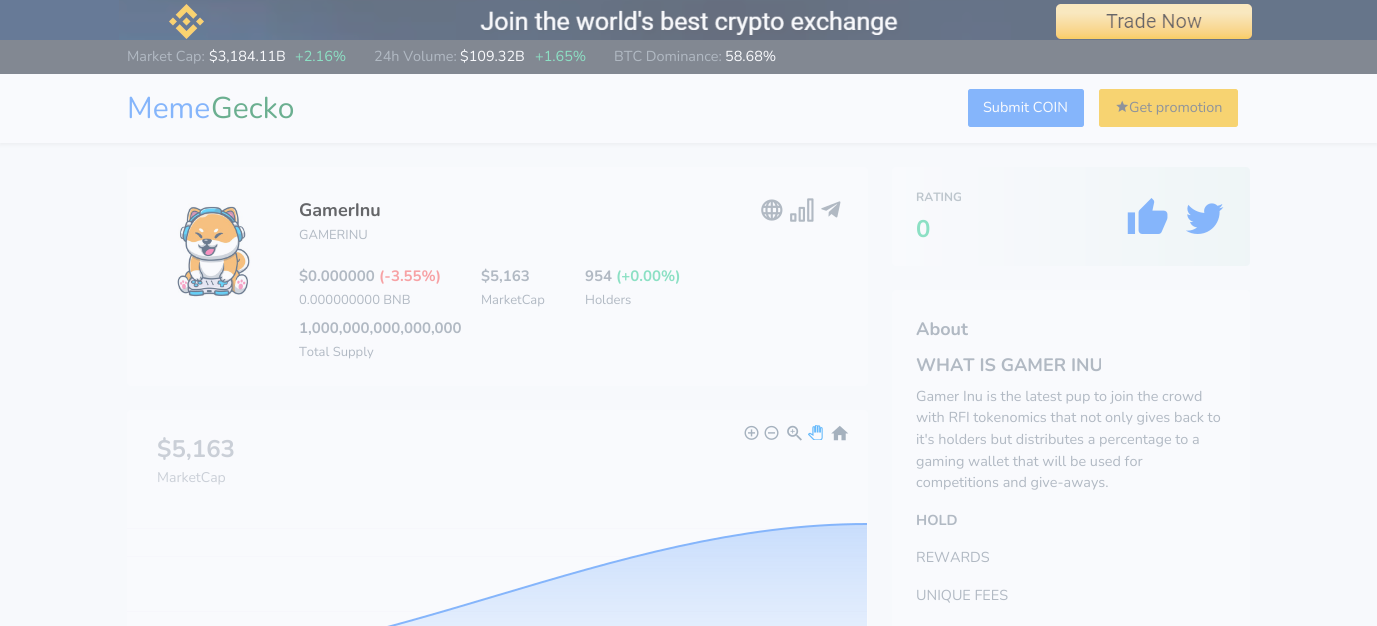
import math
import cairo

surface = cairo.ImageSurface(cairo.FORMAT_RGB24, 1377, 626)
ctx = cairo.Context(surface)
options = cairo.FontOptions()
options.set_hint_metrics(cairo.HINT_METRICS_OFF)
options.set_hint_style(cairo.HINT_STYLE_NONE)
ctx.set_font_options(options)
ctx.set_miter_limit(4)


def round_rect(x, y, w, h, r):
    ctx.new_sub_path()
    for i, (u, v) in enumerate([(x + w - r, y + h - r), (x + r, y + h - r), (x + r, y + r), (x + w - r, y + r)]):
        ctx.arc(u, v, r, i * math.pi / 2, (i + 1) * math.pi / 2)
    ctx.close_path()


def shadow(x, y, w, h, r, blur, alpha):
    ctx.push_group_with_content(cairo.CONTENT_ALPHA)
    ctx.set_operator(cairo.OPERATOR_SOURCE)
    for i in range(15, -16, -2):
        e = blur * i / 6
        if min(w, h) + 2 * e > 0:
            ctx.set_source_rgba(0, 0, 0, alpha * math.erfc((i - 1) / 8.5) / 2)
            round_rect(x - e, y - e, w + 2 * e, h + 2 * e, max(0, min(r + e + blur * .6, min(w, h) / 2 + e)))
            ctx.fill()
    ctx.mask(ctx.pop_group())


def picture(path, x, y, w, h):
    ctx.save()
    ctx.set_source_surface(cairo.ImageSurface.create_from_png(path), x, y)
    ctx.rectangle(x, y, w, h)
    ctx.fill()
    ctx.restore()


ctx.set_source_rgb(0.965, 0.973, 0.988)
ctx.paint()
gradient = cairo.LinearGradient(0, 20, 1377, 20)
gradient.add_color_stop_rgba(0.49, 0.404, 0.478, 0.592, 1)
gradient.add_color_stop_rgba(0.5, 0.4, 0.459, 0.541, 1)
ctx.set_source(gradient)
ctx.rectangle(0, 0, 1377, 40)
ctx.fill()
picture("img1.png", 119, 0, 1133, 40)
ctx.set_source_rgb(0.396, 0.4, 0.412)
shadow(0, 76, 1377, 69, 0, 2, 0.07)
ctx.set_source_rgb(0.51, 0.533, 0.573)
ctx.rectangle(0, 40, 1377, 34)
ctx.fill()
ctx.select_font_face("Nunito")
ctx.set_font_size(14.4)
ctx.set_source_rgb(0.694, 0.725, 0.765)
ctx.move_to(127, 61)
ctx.show_text("Market Cap:")
ctx.set_source_rgb(0.976, 0.98, 0.992)
ctx.move_to(209, 61)
ctx.show_text("$3,184.11B")
ctx.set_source_rgb(0.549, 0.878, 0.769)
ctx.move_to(295, 61)
ctx.show_text("+2.16%")
ctx.set_source_rgb(0.694, 0.725, 0.765)
ctx.move_to(374, 61)
ctx.show_text("24h Volume:")
ctx.set_source_rgb(0.976, 0.98, 0.992)
ctx.move_to(460, 61)
ctx.show_text("$109.32B")
ctx.set_source_rgb(0.549, 0.878, 0.769)
ctx.move_to(535, 61)
ctx.show_text("+1.65%")
ctx.set_source_rgb(0.694, 0.725, 0.765)
ctx.move_to(614, 61)
ctx.show_text("BTC Dominance:")
ctx.set_source_rgb(0.976, 0.98, 0.992)
ctx.move_to(725, 61)
ctx.show_text("58.68%")
ctx.rectangle(0, 74, 1377, 69)
ctx.fill()
ctx.set_font_size(30)
ctx.set_source_rgb(0.522, 0.71, 0.984)
ctx.move_to(127, 118)
ctx.show_text("Meme")
ctx.set_source_rgb(0.42, 0.686, 0.565)
ctx.move_to(211, 118)
ctx.show_text("Gecko")
ctx.set_source_rgb(0.522, 0.71, 0.984)
round_rect(968.5, 89.5, 115, 37, 2)
ctx.fill_preserve()
ctx.set_line_width(1)
ctx.stroke()
ctx.set_font_size(14.4)
ctx.set_source_rgb(0.976, 0.98, 0.992)
ctx.move_to(983, 112)
ctx.show_text("Submit COIN")
ctx.set_source_rgb(0.965, 0.827, 0.443)
round_rect(1099.5, 89.5, 138, 37, 2)
ctx.fill_preserve()
ctx.stroke()
picture("img2.png", 1116, 100, 12, 12)
ctx.set_source_rgb(0.557, 0.576, 0.608)
ctx.move_to(1129, 112)
ctx.show_text("Get promotion")
ctx.set_source_rgb(0.976, 0.98, 0.992)
round_rect(127, 167, 741, 219, 4)
ctx.fill()
picture("img3.png", 177, 203, 74, 95)
ctx.select_font_face("Nunito", cairo.FONT_SLANT_NORMAL, cairo.FONT_WEIGHT_BOLD)
ctx.set_font_size(18)
ctx.set_source_rgb(0.396, 0.4, 0.412)
ctx.move_to(299, 216)
ctx.show_text("GamerInu")
ctx.select_font_face("Nunito")
ctx.set_font_size(13)
ctx.set_source_rgb(0.694, 0.725, 0.765)
ctx.move_to(299, 239)
ctx.show_text("GAMERINU")
ctx.select_font_face("Nunito", cairo.FONT_SLANT_NORMAL, cairo.FONT_WEIGHT_BOLD)
ctx.set_font_size(15)
ctx.move_to(299, 281)
ctx.show_text("$0.000000")
ctx.set_source_rgb(0.965, 0.635, 0.647)
ctx.move_to(379, 281)
ctx.show_text("(-3.55%)")
ctx.select_font_face("Nunito")
ctx.set_font_size(13)
ctx.set_source_rgb(0.694, 0.725, 0.765)
ctx.move_to(299, 304)
ctx.show_text("0.000000000 BNB")
ctx.select_font_face("Nunito", cairo.FONT_SLANT_NORMAL, cairo.FONT_WEIGHT_BOLD)
ctx.set_font_size(15)
ctx.move_to(481, 281)
ctx.show_text("$5,163")
ctx.select_font_face("Nunito")
ctx.set_font_size(13)
ctx.move_to(481, 304)
ctx.show_text("MarketCap")
ctx.select_font_face("Nunito", cairo.FONT_SLANT_NORMAL, cairo.FONT_WEIGHT_BOLD)
ctx.set_font_size(15)
ctx.move_to(585, 281)
ctx.show_text("954")
ctx.set_source_rgb(0.549, 0.878, 0.769)
ctx.move_to(616, 281)
ctx.show_text("(+0.00%)")
ctx.select_font_face("Nunito")
ctx.set_font_size(13)
ctx.set_source_rgb(0.694, 0.725, 0.765)
ctx.move_to(585, 304)
ctx.show_text("Holders")
ctx.select_font_face("Nunito", cairo.FONT_SLANT_NORMAL, cairo.FONT_WEIGHT_BOLD)
ctx.set_font_size(15)
ctx.move_to(299, 333)
ctx.show_text("1,000,000,000,000,000")
ctx.select_font_face("Nunito")
ctx.set_font_size(13)
ctx.move_to(299, 356)
ctx.show_text("Total Supply")
picture("img4.png", 761, 199, 22, 22)
picture("img5.png", 790, 198, 24, 24)
picture("img6.png", 821, 201, 20, 17)
ctx.set_source_rgb(0.976, 0.98, 0.992)
round_rect(127, 410, 741, 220, 4)
ctx.fill()
picture("img7.png", 744, 425, 15, 15)
picture("img8.png", 764, 425, 15, 15)
picture("img9.png", 787, 425, 15, 16)
picture("img10.png", 808, 425, 15, 15)
picture("img11.png", 831, 425, 18, 16)
ctx.select_font_face("Nunito", cairo.FONT_SLANT_NORMAL, cairo.FONT_WEIGHT_BOLD)
ctx.set_font_size(24)
ctx.set_source_rgb(0.792, 0.812, 0.843)
ctx.move_to(157, 457)
ctx.show_text("$5,163")
ctx.select_font_face("Nunito")
ctx.set_font_size(14)
ctx.move_to(157, 482)
ctx.show_text("MarketCap")
ctx.set_source_rgb(0.965, 0.965, 0.988)
ctx.rectangle(127, 528, 740, 1)
ctx.fill()
ctx.rectangle(127, 556, 740, 1)
ctx.fill()
ctx.rectangle(127, 611, 740, 1)
ctx.fill()
gradient = cairo.LinearGradient(127, 524, 127, 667)
gradient.add_color_stop_rgba(0, 0.522, 0.71, 0.984, 0.42)
gradient.add_color_stop_rgba(1, 0.749, 0.847, 0.988, 0.25)
ctx.set_source(gradient)
ctx.new_path()
ctx.move_to(127, 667)
ctx.curve_to(386, 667, 608, 524, 867, 524)
ctx.line_to(867, 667)
ctx.fill()
ctx.new_path()
ctx.move_to(127, 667)
ctx.curve_to(386, 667, 608, 524, 867, 524)
ctx.set_source_rgb(0.522, 0.71, 0.984)
ctx.set_line_width(2)
ctx.stroke()
gradient = cairo.LinearGradient(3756, 563, 892, 563)
gradient.add_color_stop_rgba(0, 0.976, 0.98, 0.992, 1)
gradient.add_color_stop_rgba(0.25, 0.945, 0.929, 0.886, 1)
gradient.add_color_stop_rgba(0.5, 0.925, 0.886, 0.953, 1)
gradient.add_color_stop_rgba(0.75, 0.898, 0.945, 0.945, 1)
gradient.add_color_stop_rgba(1, 0.976, 0.98, 0.992, 1)
ctx.set_source(gradient)
round_rect(892, 167, 358, 99, 4)
ctx.fill()
ctx.select_font_face("Nunito", cairo.FONT_SLANT_NORMAL, cairo.FONT_WEIGHT_BOLD)
ctx.set_font_size(12)
ctx.set_source_rgb(0.741, 0.776, 0.804)
ctx.move_to(916, 201)
ctx.show_text("RATING")
ctx.set_font_size(24)
ctx.set_source_rgb(0.549, 0.878, 0.769)
ctx.move_to(916, 237)
ctx.show_text("0")
picture("img12.png", 1127, 198, 41, 36)
picture("img13.png", 1186, 203, 38, 31)
ctx.set_source_rgb(0.976, 0.98, 0.992)
round_rect(892, 290, 358, 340, 4)
ctx.fill()
ctx.set_font_size(18)
ctx.set_source_rgb(0.694, 0.725, 0.765)
ctx.move_to(916, 335)
ctx.show_text("About")
ctx.move_to(916, 371)
ctx.show_text("WHAT IS GAMER INU")
ctx.select_font_face("Nunito")
ctx.set_font_size(14.4)
ctx.move_to(916, 401)
ctx.show_text("Gamer Inu is the latest pup to join the crowd")
ctx.move_to(916, 422)
ctx.show_text("with RFI tokenomics that not only gives back to")
ctx.move_to(916, 444)
ctx.show_text("it's holders but distributes a percentage to a")
ctx.move_to(916, 466)
ctx.show_text("gaming wallet that will be used for")
ctx.move_to(916, 487)
ctx.show_text("competitions and give-aways.")
ctx.select_font_face("Nunito", cairo.FONT_SLANT_NORMAL, cairo.FONT_WEIGHT_BOLD)
ctx.move_to(916, 525)
ctx.show_text("HOLD")
ctx.select_font_face("Nunito")
ctx.move_to(916, 562)
ctx.show_text("REWARDS")
ctx.move_to(916, 600)
ctx.show_text("UNIQUE FEES")
surface.write_to_png("page.png")
